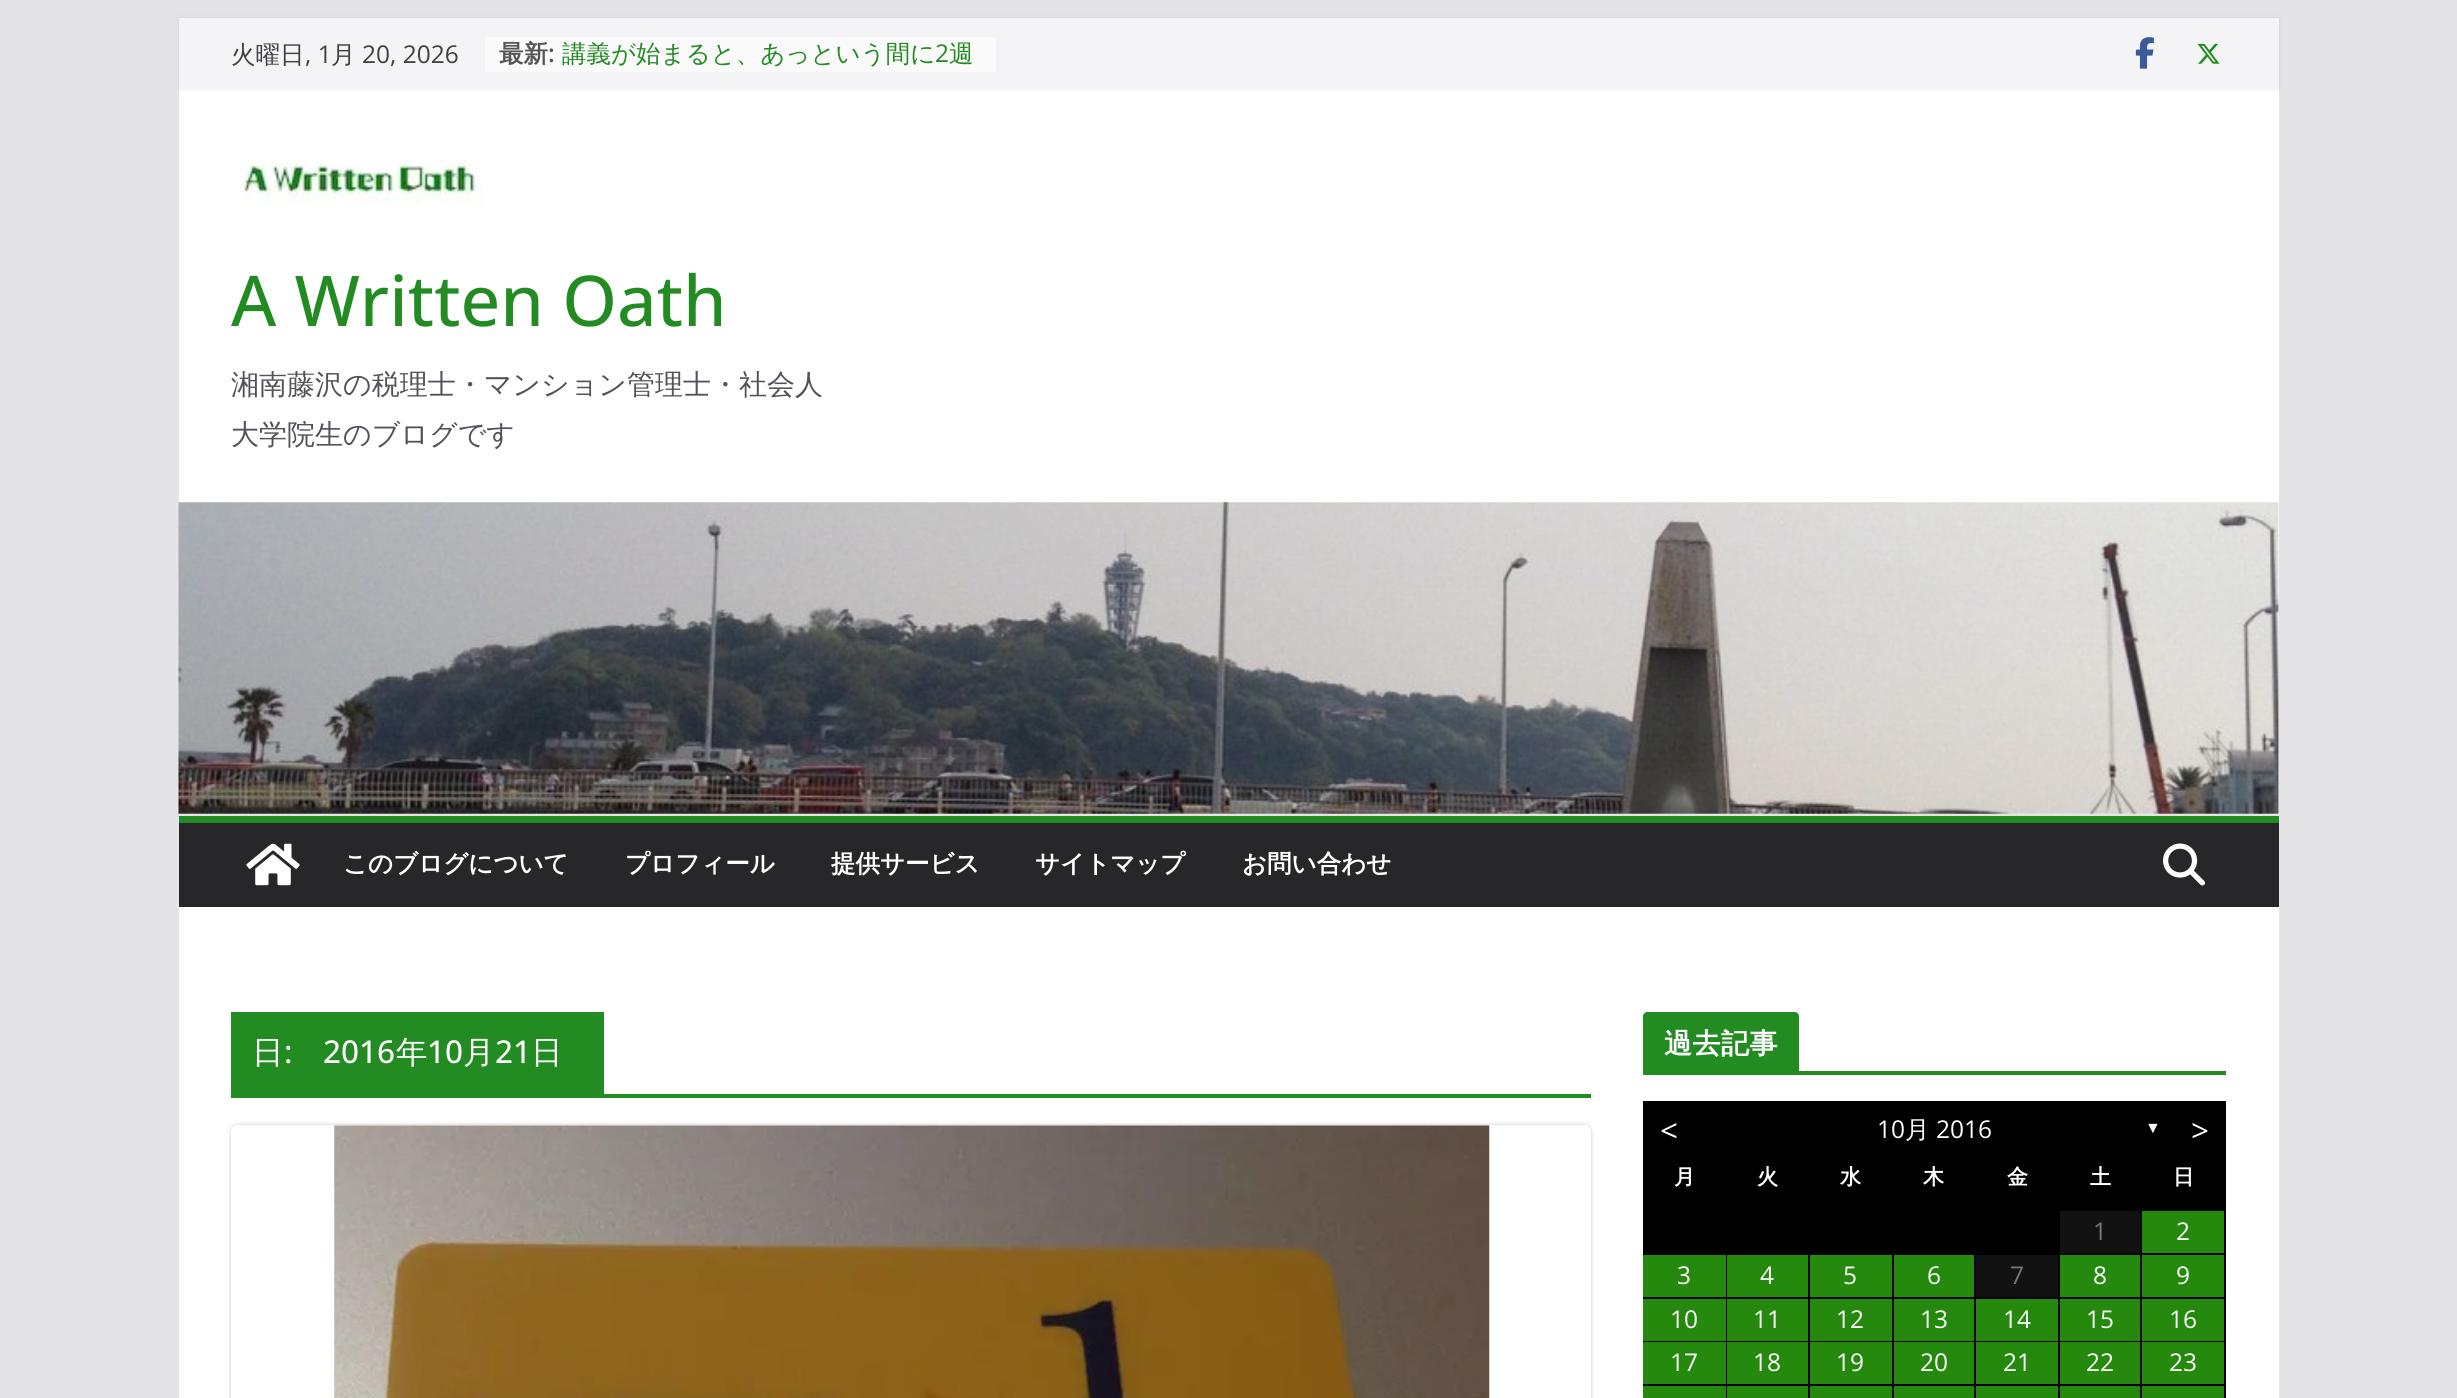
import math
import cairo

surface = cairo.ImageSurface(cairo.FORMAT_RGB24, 2457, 1398)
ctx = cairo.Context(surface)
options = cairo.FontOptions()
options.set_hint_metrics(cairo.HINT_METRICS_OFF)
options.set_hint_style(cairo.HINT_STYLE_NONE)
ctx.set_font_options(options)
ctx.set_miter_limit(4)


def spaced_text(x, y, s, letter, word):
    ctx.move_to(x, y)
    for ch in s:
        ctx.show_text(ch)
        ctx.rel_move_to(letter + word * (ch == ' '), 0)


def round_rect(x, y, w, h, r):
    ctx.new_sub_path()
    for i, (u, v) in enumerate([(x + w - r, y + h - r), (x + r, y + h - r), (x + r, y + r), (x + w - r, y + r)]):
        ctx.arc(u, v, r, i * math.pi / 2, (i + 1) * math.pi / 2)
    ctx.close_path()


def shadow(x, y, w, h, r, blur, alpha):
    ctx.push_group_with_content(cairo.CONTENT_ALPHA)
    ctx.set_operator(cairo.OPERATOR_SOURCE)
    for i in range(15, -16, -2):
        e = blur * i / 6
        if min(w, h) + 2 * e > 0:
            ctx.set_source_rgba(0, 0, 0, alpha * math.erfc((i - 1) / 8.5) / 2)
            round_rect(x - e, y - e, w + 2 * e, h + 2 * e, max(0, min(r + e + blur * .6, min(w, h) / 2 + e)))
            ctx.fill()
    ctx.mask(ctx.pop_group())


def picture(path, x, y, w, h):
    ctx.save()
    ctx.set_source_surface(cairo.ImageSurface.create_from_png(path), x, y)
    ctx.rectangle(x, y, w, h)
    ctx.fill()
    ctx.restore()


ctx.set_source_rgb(0.894, 0.894, 0.906)
ctx.paint()
ctx.set_source_rgb(1, 1, 1)
ctx.rectangle(179, 89, 2100, 725)
ctx.fill()
ctx.set_source_rgb(0, 0, 0)
shadow(179, 18, 2100, 71, 0, 2, 0.1)
ctx.set_source_rgb(0.957, 0.957, 0.961)
ctx.rectangle(179, 18, 2100, 71)
ctx.fill()
ctx.select_font_face("WenQuanYi Zen Hei Medium")
ctx.set_font_size(24.5)
ctx.set_source_rgb(0.247, 0.247, 0.275)
ctx.move_to(231, 63)
ctx.show_text("火曜日")
ctx.select_font_face("Open Sans")
ctx.move_to(305, 63)
ctx.show_text(", 1")
ctx.select_font_face("WenQuanYi Zen Hei Medium")
ctx.move_to(331, 63)
ctx.show_text("月")
ctx.select_font_face("Open Sans")
ctx.move_to(362, 63)
ctx.show_text("20, 2026")
ctx.set_source_rgb(0.98, 0.98, 0.98)
ctx.rectangle(485, 37, 511, 35)
ctx.fill()
ctx.select_font_face("WenQuanYi Zen Hei", cairo.FONT_SLANT_NORMAL, cairo.FONT_WEIGHT_BOLD)
ctx.set_source_rgb(0.333, 0.333, 0.333)
ctx.move_to(499, 62)
ctx.show_text("最新")
ctx.select_font_face("Open Sans SemiBold")
ctx.move_to(548, 62)
ctx.show_text(":")
ctx.select_font_face("WenQuanYi Zen Hei Medium")
ctx.set_source_rgb(0.133, 0.545, 0.133)
ctx.move_to(562, 62)
ctx.show_text("講義が始まると、あっという間に")
ctx.select_font_face("Open Sans")
ctx.move_to(935, 62)
ctx.show_text("2")
ctx.select_font_face("WenQuanYi Zen Hei Medium")
ctx.move_to(949, 62)
ctx.show_text("週")
picture("img1.png", 2135, 37, 19, 32)
picture("img2.png", 2197, 43, 23, 21)
picture("img3.png", 244, 159, 239, 47)
ctx.select_font_face("Open Sans Medium")
ctx.set_font_size(70)
ctx.move_to(231, 326)
ctx.show_text("A Written Oath")
ctx.select_font_face("WenQuanYi Zen Hei Medium")
ctx.set_font_size(28)
ctx.set_source_rgb(0.322, 0.322, 0.357)
ctx.move_to(231, 394)
ctx.show_text("湘南藤沢の税理士・マンション管理士・社会人")
ctx.move_to(231, 444)
ctx.show_text("大学院生のブログです")
picture("img4.png", 178, 502, 2101, 312)
ctx.set_source_rgb(0.153, 0.153, 0.165)
ctx.rectangle(179, 823, 2100, 84)
ctx.fill()
ctx.set_source_rgb(0.133, 0.545, 0.133)
ctx.rectangle(179, 816, 2100, 7)
ctx.fill()
picture("img5.png", 246, 843, 54, 43)
ctx.select_font_face("WenQuanYi Zen Hei", cairo.FONT_SLANT_NORMAL, cairo.FONT_WEIGHT_BOLD)
ctx.set_font_size(24.5)
ctx.set_source_rgb(1, 1, 1)
ctx.move_to(343, 872)
ctx.show_text("このブログについて")
ctx.move_to(625, 872)
ctx.show_text("プロフィール")
ctx.move_to(831, 872)
ctx.show_text("提供サービス")
ctx.move_to(1035, 872)
ctx.show_text("サイトマップ")
ctx.move_to(1242, 872)
ctx.show_text("お問い合わせ")
picture("img6.png", 2163, 843, 42, 43)
ctx.rectangle(179, 907, 2100, 491)
ctx.fill()
ctx.set_source_rgb(0.133, 0.545, 0.133)
ctx.rectangle(231, 1094, 1360, 4)
ctx.fill()
ctx.rectangle(231, 1012, 373, 82)
ctx.fill()
ctx.select_font_face("WenQuanYi Zen Hei Medium")
ctx.set_font_size(31.5)
ctx.set_source_rgb(1, 1, 1)
ctx.move_to(252, 1063)
ctx.show_text("日")
ctx.select_font_face("Open Sans Medium")
ctx.move_to(284, 1063)
ctx.show_text(":")
ctx.move_to(323, 1063)
ctx.show_text("2016")
ctx.select_font_face("WenQuanYi Zen Hei Medium")
ctx.move_to(396, 1063)
ctx.show_text("年")
ctx.select_font_face("Open Sans Medium")
ctx.move_to(427, 1063)
ctx.show_text("10")
ctx.select_font_face("WenQuanYi Zen Hei Medium")
ctx.move_to(463, 1063)
ctx.show_text("月")
ctx.select_font_face("Open Sans Medium")
ctx.move_to(495, 1063)
ctx.show_text("21")
ctx.select_font_face("WenQuanYi Zen Hei Medium")
ctx.move_to(531, 1063)
ctx.show_text("日")
ctx.save()
ctx.set_fill_rule(cairo.FILL_RULE_EVEN_ODD)
ctx.new_path()
ctx.move_to(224, 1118)
ctx.line_to(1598, 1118)
ctx.line_to(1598, 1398)
ctx.line_to(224, 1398)
ctx.close_path()
ctx.move_to(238, 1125)
ctx.line_to(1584, 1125)
ctx.curve_to(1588, 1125, 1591, 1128, 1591, 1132)
ctx.line_to(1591, 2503)
ctx.curve_to(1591, 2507, 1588, 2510, 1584, 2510)
ctx.line_to(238, 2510)
ctx.curve_to(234, 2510, 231, 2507, 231, 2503)
ctx.line_to(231, 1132)
ctx.curve_to(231, 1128, 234, 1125, 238, 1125)
ctx.close_path()
ctx.clip()
ctx.set_source_rgb(0, 0, 0)
shadow(231, 1125, 1360, 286, 7, 2, 0.24)
ctx.restore()
picture("img7.png", 334, 1125, 1156, 273)
ctx.set_source_rgb(0.133, 0.545, 0.133)
ctx.rectangle(1643, 1071, 583, 4)
ctx.fill()
ctx.new_path()
ctx.move_to(1647, 1012)
ctx.line_to(1795, 1012)
ctx.curve_to(1797, 1012, 1799, 1014, 1799, 1016)
ctx.line_to(1799, 1071)
ctx.line_to(1643, 1071)
ctx.line_to(1643, 1016)
ctx.curve_to(1643, 1014, 1645, 1012, 1647, 1012)
ctx.close_path()
ctx.fill()
ctx.select_font_face("WenQuanYi Zen Hei", cairo.FONT_SLANT_NORMAL, cairo.FONT_WEIGHT_BOLD)
ctx.set_font_size(28)
ctx.set_source_rgb(1, 1, 1)
spaced_text(1664, 1053, "過去記事", 0.5, 0)
ctx.set_source_rgb(0, 0, 0)
ctx.rectangle(1643, 1101, 583, 110)
ctx.fill()
ctx.select_font_face("Open Sans")
ctx.set_font_size(31.5)
ctx.set_source_rgb(1, 1, 1)
ctx.move_to(1660, 1142)
ctx.show_text("<")
ctx.set_font_size(24.5)
ctx.move_to(1877, 1138)
ctx.show_text("10")
ctx.select_font_face("WenQuanYi Zen Hei Medium")
ctx.move_to(1905, 1138)
ctx.show_text("月")
ctx.select_font_face("Open Sans")
ctx.move_to(1936, 1138)
ctx.show_text("2016")
ctx.select_font_face("Liberation Sans")
ctx.set_font_size(16)
ctx.move_to(2145, 1133)
ctx.show_text("▼")
ctx.select_font_face("Open Sans")
ctx.set_font_size(31.5)
ctx.move_to(2191, 1142)
ctx.show_text(">")
ctx.select_font_face("WenQuanYi Zen Hei", cairo.FONT_SLANT_NORMAL, cairo.FONT_WEIGHT_BOLD)
ctx.set_font_size(21)
ctx.move_to(1674, 1184)
ctx.show_text("月")
ctx.move_to(1757, 1184)
ctx.show_text("火")
ctx.move_to(1840, 1184)
ctx.show_text("水")
ctx.move_to(1923, 1184)
ctx.show_text("木")
ctx.move_to(2007, 1184)
ctx.show_text("金")
ctx.move_to(2090, 1184)
ctx.show_text("土")
ctx.move_to(2173, 1184)
ctx.show_text("日")
ctx.set_source_rgb(0, 0, 0)
ctx.rectangle(1643, 1211, 417, 44)
ctx.fill()
ctx.set_source_rgb(0.071, 0.071, 0.071)
ctx.rectangle(2060, 1211, 80, 42)
ctx.fill()
ctx.set_source_rgb(0, 0, 0)
ctx.rectangle(2140, 1211, 2, 187)
ctx.fill()
ctx.rectangle(2060, 1253, 82, 2)
ctx.fill()
ctx.select_font_face("Open Sans")
ctx.set_font_size(24.5)
ctx.set_source_rgb(0.467, 0.467, 0.467)
ctx.move_to(2093, 1240)
ctx.show_text("1")
ctx.set_source_rgb(0, 0, 0)
ctx.rectangle(2224, 1211, 2, 187)
ctx.fill()
ctx.rectangle(2142, 1253, 84, 2)
ctx.fill()
ctx.set_source_rgb(0.141, 0.537, 0.051)
ctx.rectangle(2142, 1211, 82, 42)
ctx.fill()
ctx.set_source_rgb(1, 1, 1)
ctx.move_to(2176, 1240)
ctx.show_text("2")
ctx.set_source_rgb(0, 0, 0)
ctx.rectangle(1726, 1255, 1, 143)
ctx.fill()
ctx.rectangle(1643, 1297, 84, 2)
ctx.fill()
ctx.set_source_rgb(0.141, 0.537, 0.051)
ctx.rectangle(1643, 1255, 83, 42)
ctx.fill()
ctx.set_source_rgb(1, 1, 1)
ctx.move_to(1677, 1284)
ctx.show_text("3")
ctx.set_source_rgb(0, 0, 0)
ctx.rectangle(1808, 1255, 2, 143)
ctx.fill()
ctx.rectangle(1727, 1297, 83, 2)
ctx.fill()
ctx.set_source_rgb(0.141, 0.537, 0.051)
ctx.rectangle(1727, 1255, 81, 42)
ctx.fill()
ctx.set_source_rgb(1, 1, 1)
ctx.move_to(1760, 1284)
ctx.show_text("4")
ctx.set_source_rgb(0, 0, 0)
ctx.rectangle(1892, 1255, 2, 143)
ctx.fill()
ctx.rectangle(1810, 1297, 84, 2)
ctx.fill()
ctx.set_source_rgb(0.141, 0.537, 0.051)
ctx.rectangle(1810, 1255, 82, 42)
ctx.fill()
ctx.set_source_rgb(1, 1, 1)
ctx.move_to(1843, 1284)
ctx.show_text("5")
ctx.set_source_rgb(0, 0, 0)
ctx.rectangle(1974, 1255, 2, 143)
ctx.fill()
ctx.rectangle(1894, 1297, 82, 2)
ctx.fill()
ctx.set_source_rgb(0.141, 0.537, 0.051)
ctx.rectangle(1894, 1255, 80, 42)
ctx.fill()
ctx.set_source_rgb(1, 1, 1)
ctx.move_to(1927, 1284)
ctx.show_text("6")
ctx.set_source_rgb(0.071, 0.071, 0.071)
ctx.rectangle(1976, 1255, 82, 42)
ctx.fill()
ctx.set_source_rgb(0, 0, 0)
ctx.rectangle(2058, 1255, 2, 143)
ctx.fill()
ctx.rectangle(1976, 1297, 250, 2)
ctx.fill()
ctx.set_source_rgb(0.467, 0.467, 0.467)
ctx.move_to(2010, 1284)
ctx.show_text("7")
ctx.set_source_rgb(0.141, 0.537, 0.051)
ctx.rectangle(2060, 1255, 80, 42)
ctx.fill()
ctx.set_source_rgb(1, 1, 1)
ctx.move_to(2093, 1284)
ctx.show_text("8")
ctx.set_source_rgb(0.141, 0.537, 0.051)
ctx.rectangle(2142, 1255, 82, 42)
ctx.fill()
ctx.set_source_rgb(1, 1, 1)
ctx.move_to(2176, 1284)
ctx.show_text("9")
ctx.set_source_rgb(0, 0, 0)
ctx.rectangle(1643, 1341, 583, 1)
ctx.fill()
ctx.set_source_rgb(0.141, 0.537, 0.051)
ctx.rectangle(1643, 1299, 83, 42)
ctx.fill()
ctx.set_source_rgb(1, 1, 1)
ctx.move_to(1670, 1328)
ctx.show_text("10")
ctx.set_source_rgb(0.141, 0.537, 0.051)
ctx.rectangle(1727, 1299, 81, 42)
ctx.fill()
ctx.set_source_rgb(1, 1, 1)
ctx.move_to(1753, 1328)
ctx.show_text("11")
ctx.set_source_rgb(0.141, 0.537, 0.051)
ctx.rectangle(1810, 1299, 82, 42)
ctx.fill()
ctx.set_source_rgb(1, 1, 1)
ctx.move_to(1836, 1328)
ctx.show_text("12")
ctx.set_source_rgb(0.141, 0.537, 0.051)
ctx.rectangle(1894, 1299, 80, 42)
ctx.fill()
ctx.set_source_rgb(1, 1, 1)
ctx.move_to(1920, 1328)
ctx.show_text("13")
ctx.set_source_rgb(0.141, 0.537, 0.051)
ctx.rectangle(1976, 1299, 82, 42)
ctx.fill()
ctx.set_source_rgb(1, 1, 1)
ctx.move_to(2003, 1328)
ctx.show_text("14")
ctx.set_source_rgb(0.141, 0.537, 0.051)
ctx.rectangle(2060, 1299, 80, 42)
ctx.fill()
ctx.set_source_rgb(1, 1, 1)
ctx.move_to(2086, 1328)
ctx.show_text("15")
ctx.set_source_rgb(0.141, 0.537, 0.051)
ctx.rectangle(2142, 1299, 82, 42)
ctx.fill()
ctx.set_source_rgb(1, 1, 1)
ctx.move_to(2169, 1328)
ctx.show_text("16")
ctx.set_source_rgb(0, 0, 0)
ctx.rectangle(1643, 1384, 583, 2)
ctx.fill()
ctx.set_source_rgb(0.141, 0.537, 0.051)
ctx.rectangle(1643, 1342, 83, 42)
ctx.fill()
ctx.set_source_rgb(1, 1, 1)
ctx.move_to(1670, 1371)
ctx.show_text("17")
ctx.set_source_rgb(0.141, 0.537, 0.051)
ctx.rectangle(1727, 1342, 81, 42)
ctx.fill()
ctx.set_source_rgb(1, 1, 1)
ctx.move_to(1753, 1371)
ctx.show_text("18")
ctx.set_source_rgb(0.141, 0.537, 0.051)
ctx.rectangle(1810, 1342, 82, 42)
ctx.fill()
ctx.set_source_rgb(1, 1, 1)
ctx.move_to(1836, 1371)
ctx.show_text("19")
ctx.set_source_rgb(0.141, 0.537, 0.051)
ctx.rectangle(1894, 1342, 80, 42)
ctx.fill()
ctx.set_source_rgb(1, 1, 1)
ctx.move_to(1920, 1371)
ctx.show_text("20")
ctx.set_source_rgb(0.141, 0.537, 0.051)
ctx.rectangle(1976, 1342, 82, 42)
ctx.fill()
ctx.set_source_rgb(1, 1, 1)
ctx.move_to(2003, 1371)
ctx.show_text("21")
ctx.set_source_rgb(0.141, 0.537, 0.051)
ctx.rectangle(2060, 1342, 80, 42)
ctx.fill()
ctx.set_source_rgb(1, 1, 1)
ctx.move_to(2086, 1371)
ctx.show_text("22")
ctx.set_source_rgb(0.141, 0.537, 0.051)
ctx.rectangle(2142, 1342, 82, 42)
ctx.fill()
ctx.set_source_rgb(1, 1, 1)
ctx.move_to(2169, 1371)
ctx.show_text("23")
ctx.set_source_rgb(0.141, 0.537, 0.051)
ctx.rectangle(1643, 1386, 83, 12)
ctx.fill()
ctx.rectangle(1727, 1386, 81, 12)
ctx.fill()
ctx.rectangle(1810, 1386, 82, 12)
ctx.fill()
ctx.rectangle(1894, 1386, 80, 12)
ctx.fill()
ctx.rectangle(1976, 1386, 82, 12)
ctx.fill()
ctx.rectangle(2060, 1386, 80, 12)
ctx.fill()
ctx.rectangle(2142, 1386, 82, 12)
ctx.fill()
surface.write_to_png("page.png")
